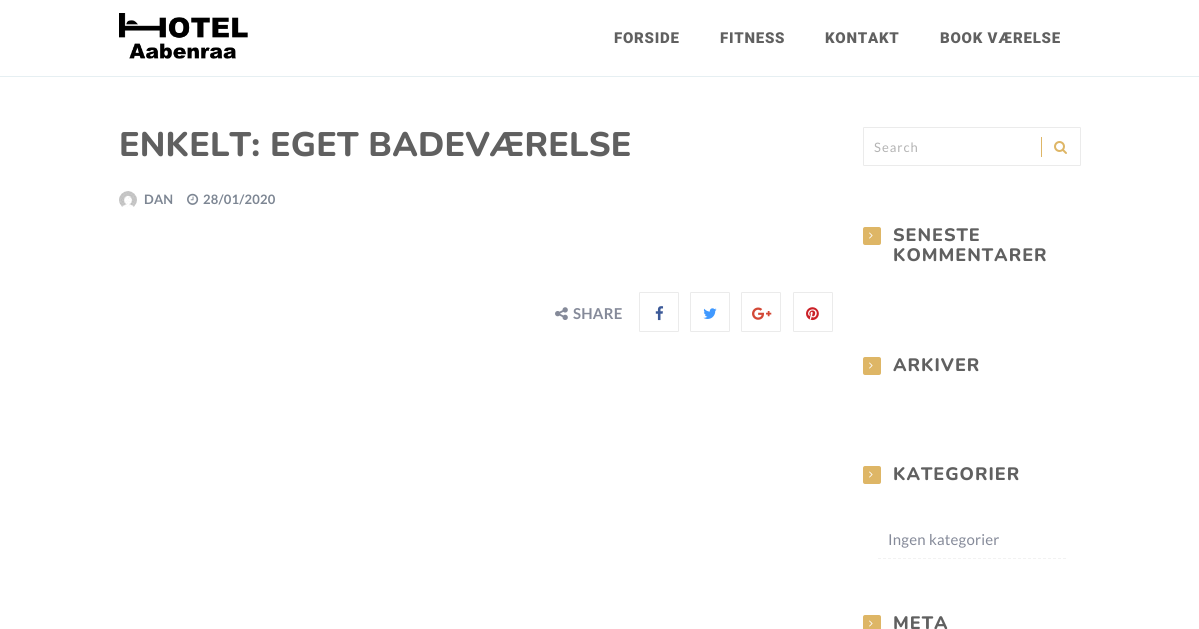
import math
import cairo

surface = cairo.ImageSurface(cairo.FORMAT_RGB24, 1199, 629)
ctx = cairo.Context(surface)
options = cairo.FontOptions()
options.set_hint_metrics(cairo.HINT_METRICS_OFF)
options.set_hint_style(cairo.HINT_STYLE_NONE)
ctx.set_font_options(options)
ctx.set_miter_limit(4)


def spaced_text(x, y, s, letter, word):
    ctx.move_to(x, y)
    for ch in s:
        ctx.show_text(ch)
        ctx.rel_move_to(letter + word * (ch == ' '), 0)


def round_rect(x, y, w, h, r):
    ctx.new_sub_path()
    for i, (u, v) in enumerate([(x + w - r, y + h - r), (x + r, y + h - r), (x + r, y + r), (x + w - r, y + r)]):
        ctx.arc(u, v, r, i * math.pi / 2, (i + 1) * math.pi / 2)
    ctx.close_path()


def picture(path, x, y, w, h):
    ctx.save()
    ctx.set_source_surface(cairo.ImageSurface.create_from_png(path), x, y)
    ctx.rectangle(x, y, w, h)
    ctx.fill()
    ctx.restore()


ctx.set_source_rgb(1, 1, 1)
ctx.paint()
ctx.set_source_rgb(0.902, 0.937, 0.949)
ctx.rectangle(0, 76, 1199, 1)
ctx.fill()
picture("img1.png", 119, 13, 129, 46)
ctx.select_font_face("Roboto Black")
ctx.set_font_size(15)
ctx.set_source_rgb(0.376, 0.376, 0.376)
spaced_text(614, 43, "FORSIDE", 0.75, 0)
spaced_text(720, 43, "FITNESS", 0.75, 0)
spaced_text(825, 43, "KONTAKT", 0.75, 0)
spaced_text(940, 43, "BOOK VÆRELSE", 0.75, 0)
ctx.select_font_face("Nunito ExtraBold")
ctx.set_font_size(34)
spaced_text(119, 156, "ENKELT: EGET BADEVÆRELSE", 0.2, 0)
picture("img2.png", 119, 191, 18, 16)
ctx.select_font_face("Lato", cairo.FONT_SLANT_NORMAL, cairo.FONT_WEIGHT_BOLD)
ctx.set_font_size(13)
ctx.set_source_rgb(0.49, 0.525, 0.576)
spaced_text(144, 204, "DAN", 0.2, 0)
picture("img3.png", 187, 193, 12, 12)
spaced_text(203, 204, "28/01/2020", 0.2, 0)
picture("img4.png", 555, 307, 13, 13)
ctx.set_font_size(15)
ctx.set_source_rgb(0.522, 0.541, 0.6)
spaced_text(573, 319, "SHARE", 0.2, 0)
round_rect(639.5, 292.5, 39, 39, 0.5)
ctx.set_source_rgb(0.918, 0.918, 0.918)
ctx.set_line_width(1)
ctx.stroke()
picture("img5.png", 655, 306, 9, 15)
round_rect(690.5, 292.5, 39, 39, 0.5)
ctx.stroke()
picture("img6.png", 703, 308, 14, 11)
round_rect(741.5, 292.5, 39, 39, 0.5)
ctx.stroke()
picture("img7.png", 752, 307, 20, 13)
round_rect(793.5, 292.5, 39, 39, 0.5)
ctx.stroke()
picture("img8.png", 806, 307, 13, 14)
round_rect(863.5, 127.5, 217, 38, 0.5)
ctx.stroke()
ctx.select_font_face("Lato")
ctx.set_font_size(13)
ctx.set_source_rgb(0.702, 0.702, 0.702)
spaced_text(874, 152, "Search", 1, 0)
ctx.set_source_rgb(0.871, 0.714, 0.4)
ctx.rectangle(1041, 137, 1, 20)
ctx.fill()
picture("img9.png", 1054, 141, 13, 13)
round_rect(863, 227, 18, 18, 2)
ctx.fill()
picture("img10.png", 869, 232, 4, 7)
ctx.select_font_face("Nunito ExtraBold")
ctx.set_font_size(18)
ctx.set_source_rgb(0.376, 0.376, 0.376)
spaced_text(893, 241, "SENESTE", 1, 0)
spaced_text(893, 261, "KOMMENTARER", 1, 0)
ctx.set_source_rgb(0.871, 0.714, 0.4)
round_rect(863, 357, 18, 18, 2)
ctx.fill()
picture("img10.png", 869, 362, 4, 7)
ctx.set_source_rgb(0.376, 0.376, 0.376)
spaced_text(893, 371, "ARKIVER", 1, 0)
ctx.set_source_rgb(0.871, 0.714, 0.4)
round_rect(863, 466, 18, 18, 2)
ctx.fill()
picture("img10.png", 869, 471, 4, 7)
ctx.set_source_rgb(0.376, 0.376, 0.376)
spaced_text(893, 480, "KATEGORIER", 1, 0)
ctx.new_path()
ctx.move_to(878, 558.5)
ctx.line_to(1066, 558.5)
ctx.set_source_rgb(0.949, 0.949, 0.949)
ctx.set_dash([3, 2])
ctx.stroke()
ctx.select_font_face("Lato")
ctx.set_font_size(15)
ctx.set_source_rgb(0.522, 0.541, 0.6)
spaced_text(888, 545, "Ingen kategorier", 0.2, 0)
ctx.set_source_rgb(0.871, 0.714, 0.4)
round_rect(863, 615, 18, 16, 2)
ctx.fill()
picture("img10.png", 869, 620, 4, 7)
ctx.select_font_face("Nunito ExtraBold")
ctx.set_font_size(18)
ctx.set_source_rgb(0.376, 0.376, 0.376)
spaced_text(893, 629, "META", 1, 0)
surface.write_to_png("page.png")
